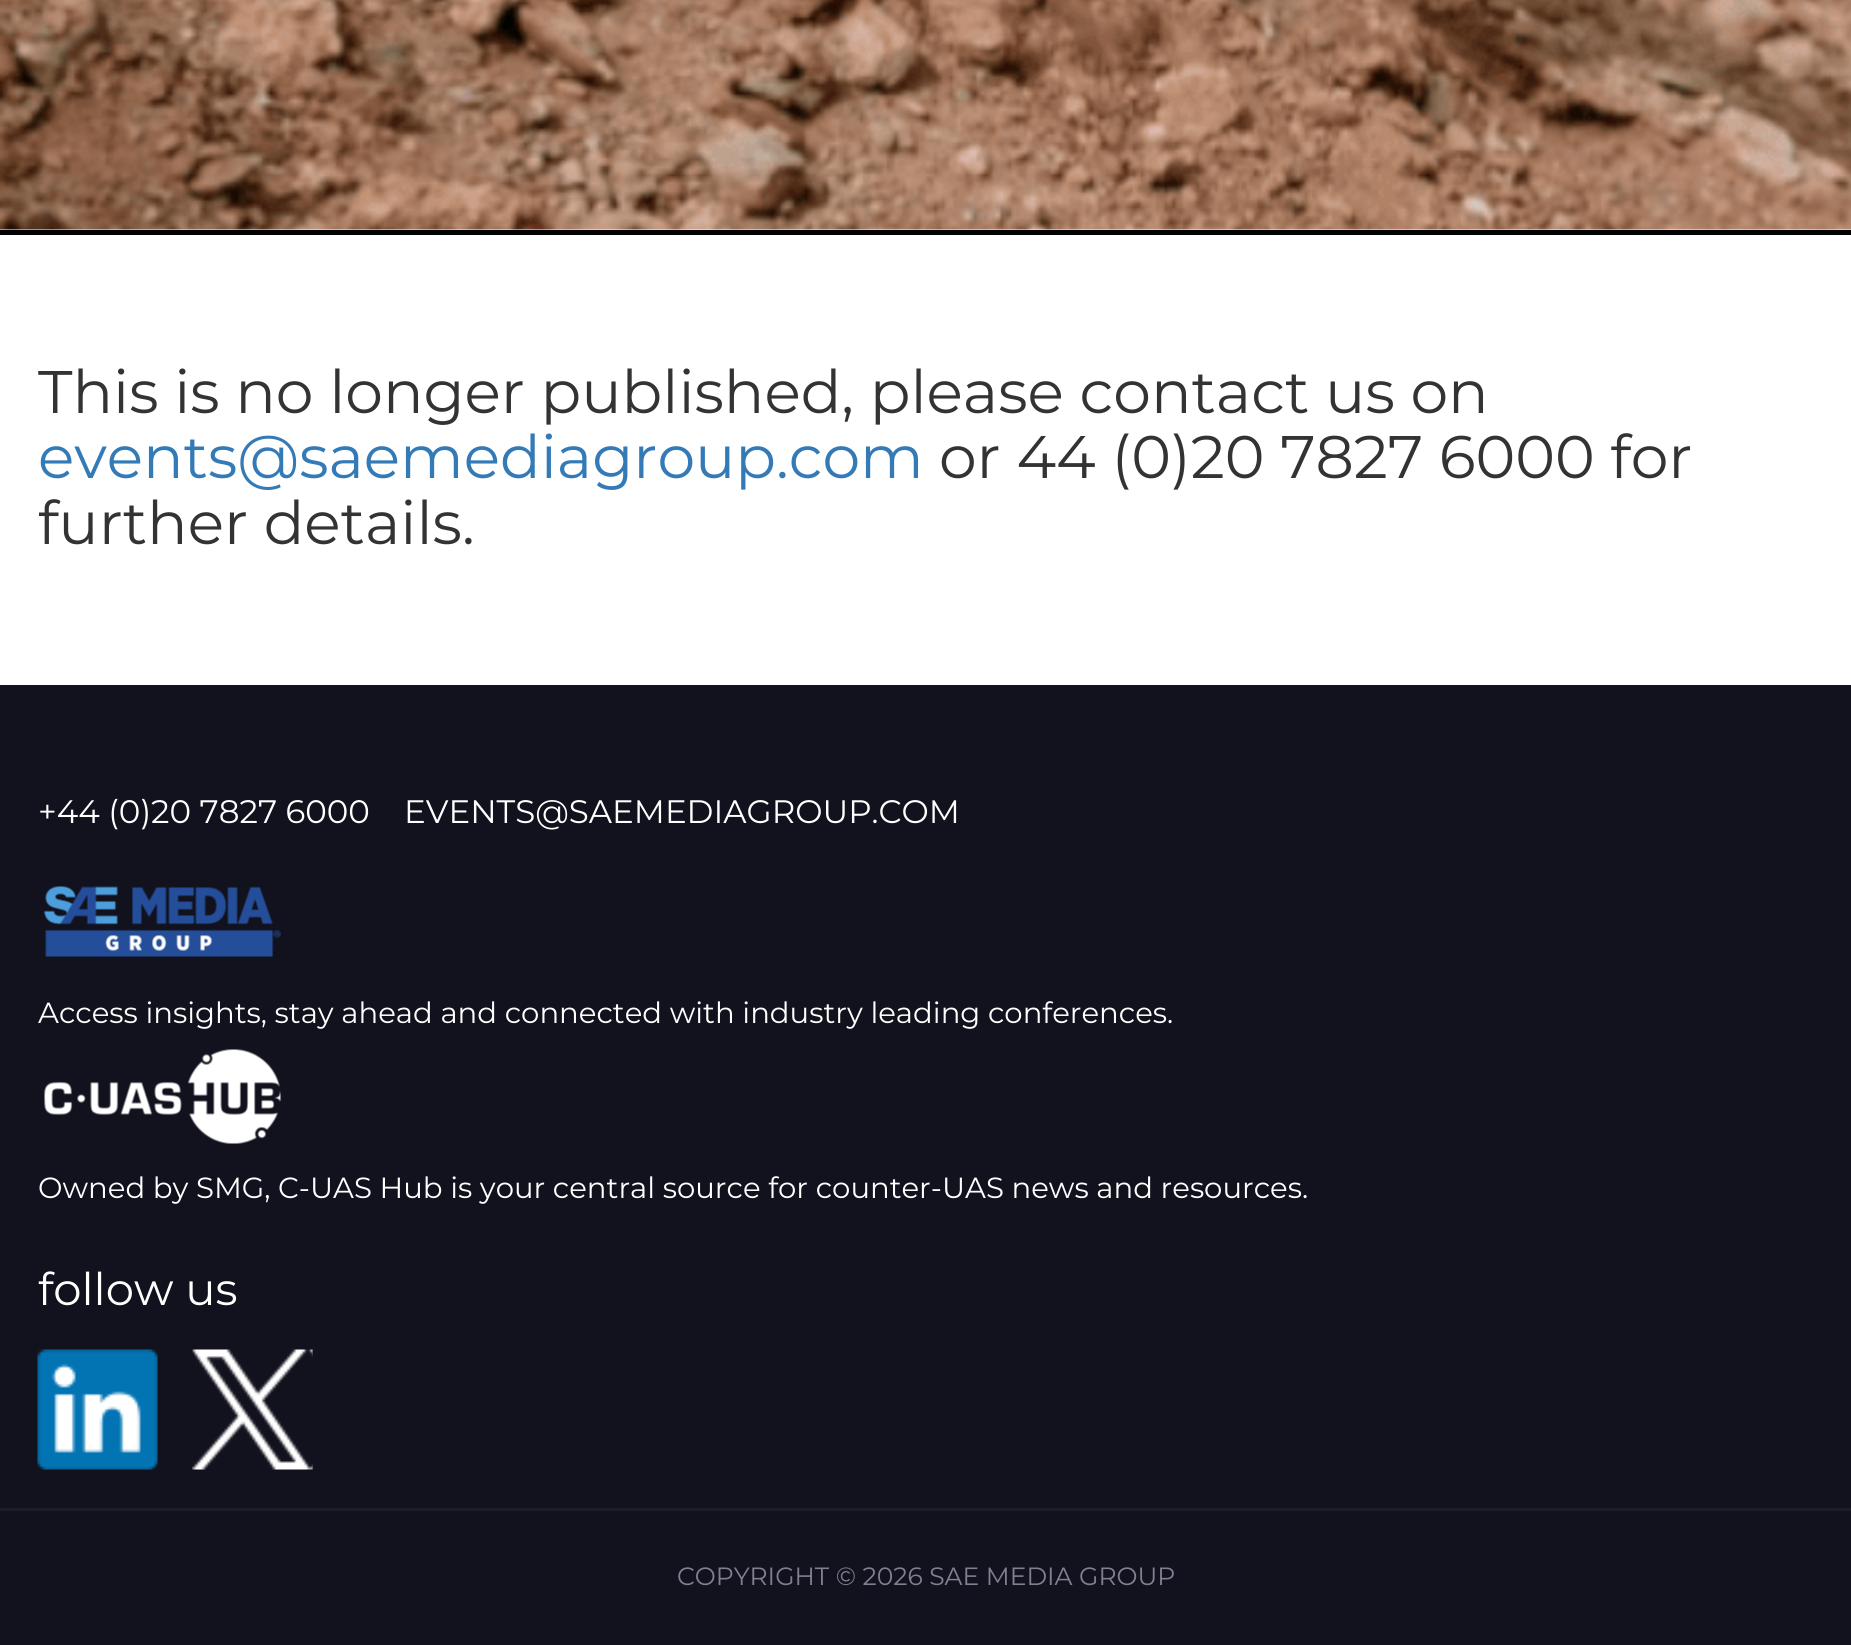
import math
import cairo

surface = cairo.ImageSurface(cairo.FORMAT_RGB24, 1851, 1645)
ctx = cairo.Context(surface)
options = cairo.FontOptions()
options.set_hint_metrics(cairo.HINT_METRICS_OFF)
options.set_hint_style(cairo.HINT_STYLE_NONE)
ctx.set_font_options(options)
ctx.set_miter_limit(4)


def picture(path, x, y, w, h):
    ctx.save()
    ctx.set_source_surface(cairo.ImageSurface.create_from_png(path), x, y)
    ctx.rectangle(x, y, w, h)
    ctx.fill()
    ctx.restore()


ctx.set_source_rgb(1, 1, 1)
ctx.paint()
picture("img1.png", 0, 0, 1851, 230)
ctx.set_source_rgb(0, 0, 0)
ctx.rectangle(0, 230, 1851, 5)
ctx.fill()
ctx.select_font_face("Montserrat")
ctx.set_font_size(60)
ctx.set_source_rgb(0.2, 0.2, 0.2)
ctx.move_to(38, 413)
ctx.show_text("This is no longer published, please contact us on")
ctx.set_source_rgb(0.2, 0.478, 0.718)
ctx.move_to(38, 478)
ctx.show_text("events@saemediagroup.com")
ctx.set_source_rgb(0.2, 0.2, 0.2)
ctx.move_to(939, 478)
ctx.show_text("or 44 (0)20 7827 6000 for")
ctx.move_to(38, 544)
ctx.show_text("further details.")
ctx.set_source_rgb(0.071, 0.071, 0.118)
ctx.rectangle(0, 685, 1851, 960)
ctx.fill()
ctx.set_font_size(32.5)
ctx.set_source_rgb(1, 1, 1)
ctx.move_to(38, 823)
ctx.show_text("+44 (0)20 7827 6000")
ctx.move_to(404, 823)
ctx.show_text("EVENTS@SAEMEDIAGROUP.COM")
picture("img2.png", 44, 886, 237, 71)
ctx.set_font_size(29.15)
ctx.move_to(38, 1023)
ctx.show_text("Access insights, stay ahead and connected with industry leading conferences.")
picture("img3.png", 44, 1049, 237, 95)
ctx.move_to(38, 1198)
ctx.show_text("Owned by SMG, C-UAS Hub is your central source for counter-UAS news and resources.")
ctx.set_font_size(45)
ctx.move_to(38, 1305)
ctx.show_text("follow us")
picture("img4.png", 37, 1349, 121, 121)
picture("img5.png", 192, 1349, 121, 121)
ctx.set_source_rgb(0.106, 0.11, 0.153)
ctx.rectangle(0, 1508, 1851, 3)
ctx.fill()
ctx.set_font_size(25)
ctx.set_source_rgb(0.502, 0.506, 0.565)
ctx.move_to(677, 1585)
ctx.show_text("COPYRIGHT © 2026 SAE MEDIA GROUP")
surface.write_to_png("page.png")
